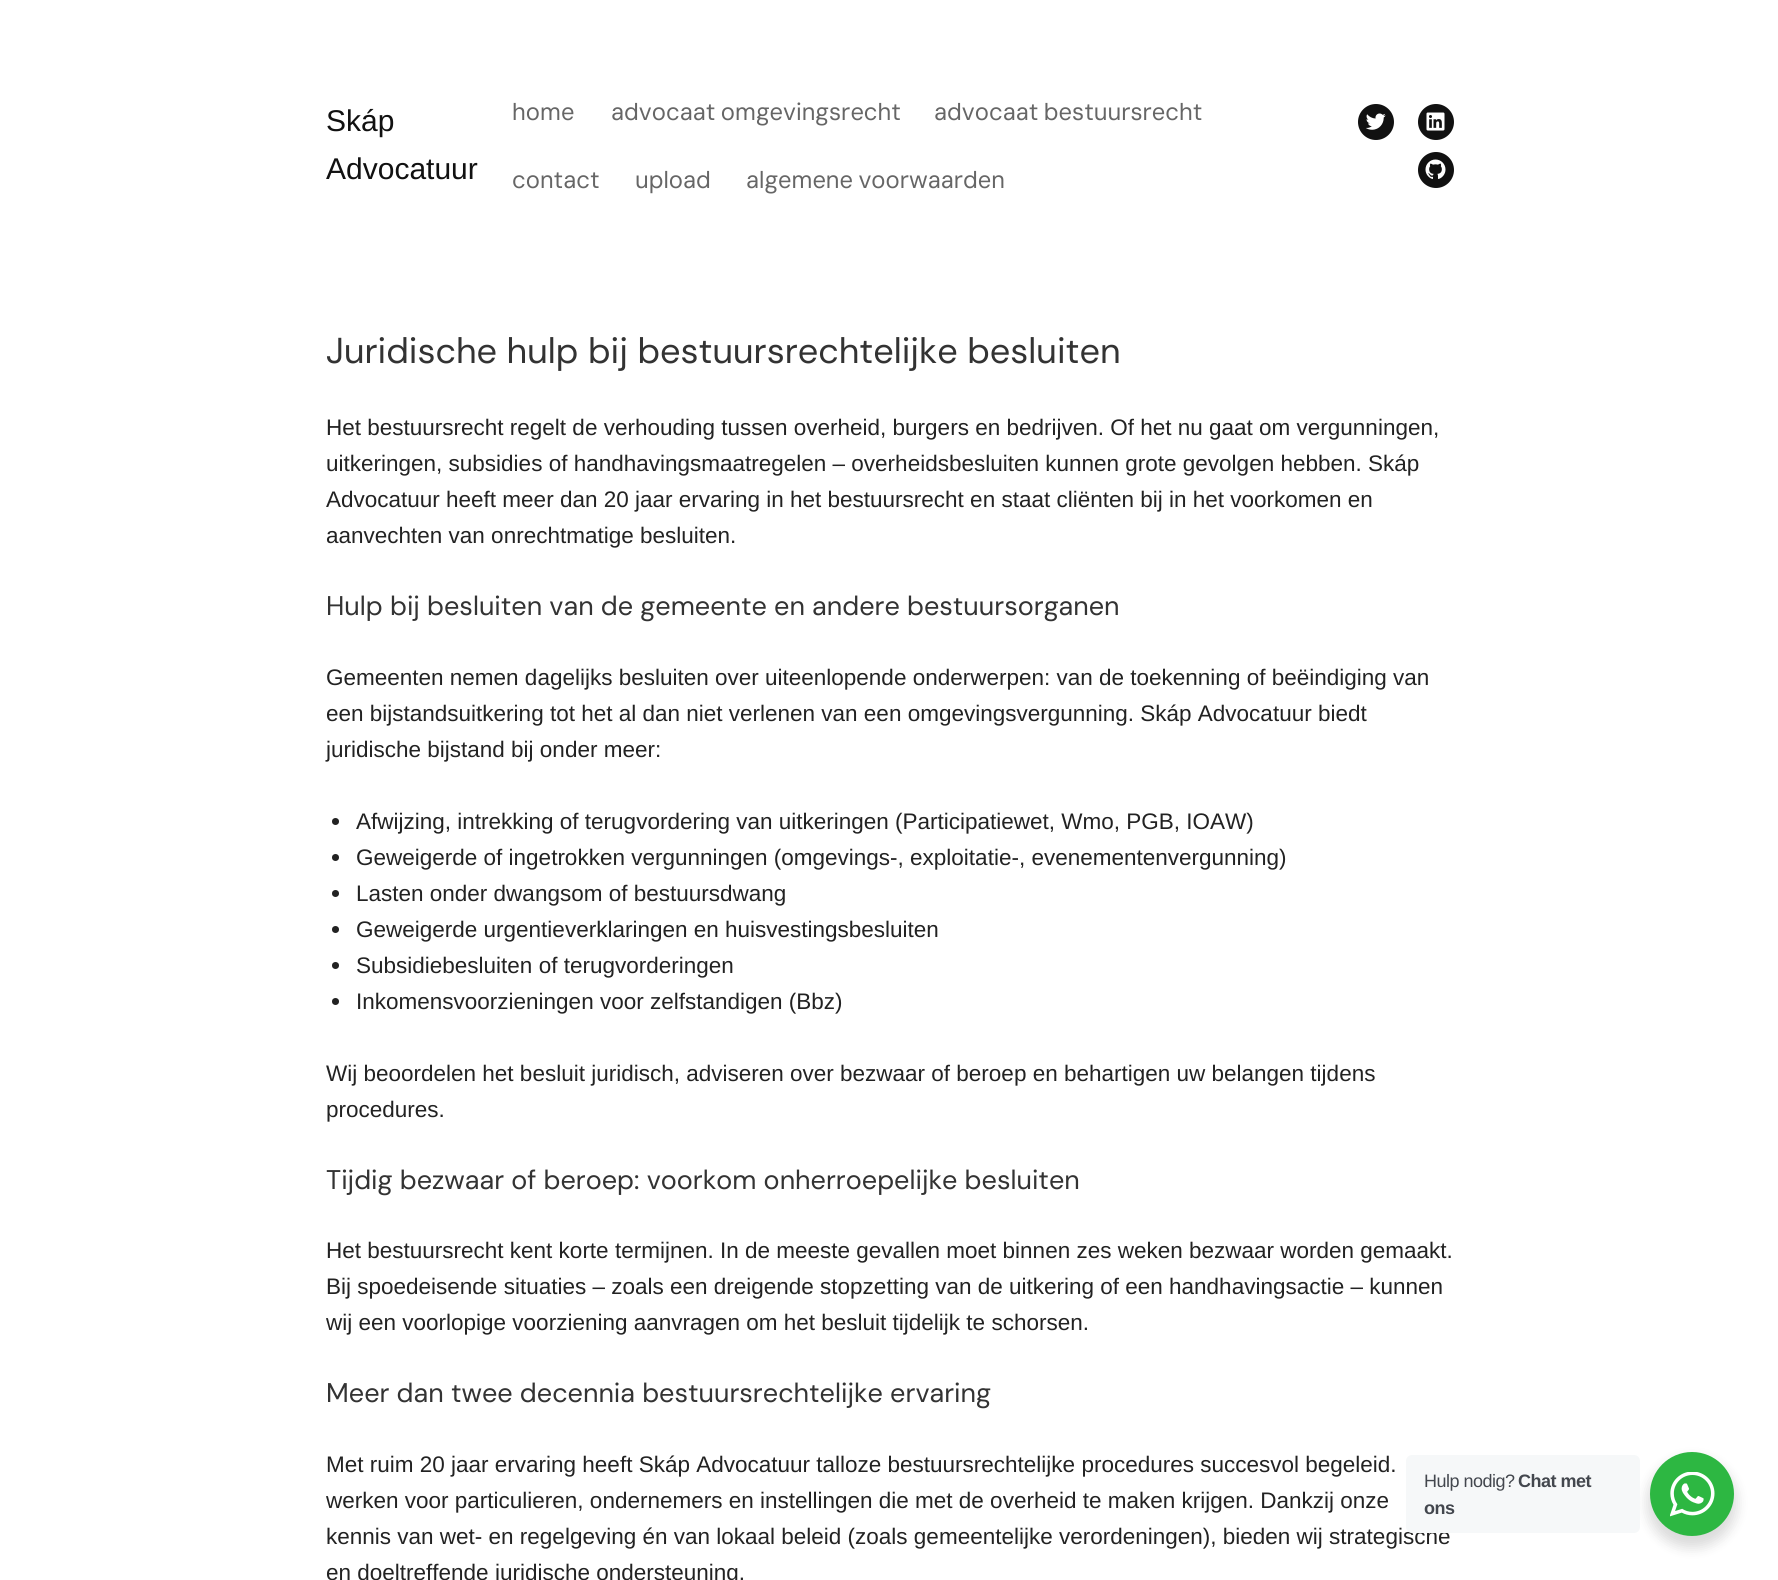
import math
import cairo

surface = cairo.ImageSurface(cairo.FORMAT_RGB24, 1778, 1580)
ctx = cairo.Context(surface)
options = cairo.FontOptions()
options.set_hint_metrics(cairo.HINT_METRICS_OFF)
options.set_hint_style(cairo.HINT_STYLE_NONE)
ctx.set_font_options(options)
ctx.set_miter_limit(4)


def spaced_text(x, y, s, letter, word):
    ctx.move_to(x, y)
    for ch in s:
        ctx.show_text(ch)
        ctx.rel_move_to(letter + word * (ch == ' '), 0)


def round_rect(x, y, w, h, r):
    ctx.new_sub_path()
    for i, (u, v) in enumerate([(x + w - r, y + h - r), (x + r, y + h - r), (x + r, y + r), (x + w - r, y + r)]):
        ctx.arc(u, v, r, i * math.pi / 2, (i + 1) * math.pi / 2)
    ctx.close_path()


def shadow(x, y, w, h, r, blur, alpha):
    ctx.push_group_with_content(cairo.CONTENT_ALPHA)
    ctx.set_operator(cairo.OPERATOR_SOURCE)
    for i in range(15, -16, -2):
        e = blur * i / 6
        if min(w, h) + 2 * e > 0:
            ctx.set_source_rgba(0, 0, 0, alpha * math.erfc((i - 1) / 8.5) / 2)
            round_rect(x - e, y - e, w + 2 * e, h + 2 * e, max(0, min(r + e + blur * .6, min(w, h) / 2 + e)))
            ctx.fill()
    ctx.mask(ctx.pop_group())


def picture(path, x, y, w, h):
    ctx.save()
    ctx.set_source_surface(cairo.ImageSurface.create_from_png(path), x, y)
    ctx.rectangle(x, y, w, h)
    ctx.fill()
    ctx.restore()


ctx.set_source_rgb(1, 1, 1)
ctx.paint()
ctx.select_font_face("Liberation Sans")
ctx.set_font_size(30)
ctx.set_source_rgb(0.067, 0.067, 0.067)
ctx.move_to(326, 131)
ctx.show_text("Skáp")
ctx.move_to(326, 179)
ctx.show_text("Advocatuur")
ctx.select_font_face("DM Sans")
ctx.set_font_size(23.75)
ctx.set_source_rgb(0.4, 0.4, 0.4)
ctx.move_to(512, 120)
ctx.show_text("home")
spaced_text(611, 120, "advocaat omgevingsrecht", 0, -1)
spaced_text(934, 120, "advocaat bestuursrecht", 0, -1)
ctx.move_to(512, 188)
ctx.show_text("contact")
ctx.move_to(635, 188)
ctx.show_text("upload")
spaced_text(746, 188, "algemene voorwaarden", 0, -1)
ctx.set_source_rgb(0.067, 0.067, 0.067)
ctx.new_path()
ctx.arc(1376, 122, 18, 0, 2 * math.pi)
ctx.fill()
picture("img1.png", 1366, 113, 20, 17)
ctx.arc(1436, 122, 18, 0, 2 * math.pi)
ctx.fill()
picture("img2.png", 1426, 112, 19, 19)
ctx.arc(1436, 170, 18, 0, 2 * math.pi)
ctx.fill()
picture("img3.png", 1425, 159, 21, 20)
ctx.select_font_face("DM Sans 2")
ctx.set_font_size(36)
ctx.set_source_rgb(0.2, 0.2, 0.2)
ctx.move_to(326, 363)
ctx.show_text("Juridische hulp bij bestuursrechtelijke besluiten")
ctx.select_font_face("Liberation Sans")
ctx.set_font_size(22.5)
ctx.set_source_rgb(0.133, 0.133, 0.133)
ctx.move_to(326, 435)
ctx.show_text("Het bestuursrecht regelt de verhouding tussen overheid, burgers en bedrijven. Of het nu gaat om vergunningen,")
ctx.move_to(326, 471)
ctx.show_text("uitkeringen, subsidies of handhavingsmaatregelen – overheidsbesluiten kunnen grote gevolgen hebben. Skáp")
ctx.move_to(326, 507)
ctx.show_text("Advocatuur heeft meer dan 20 jaar ervaring in het bestuursrecht en staat cliënten bij in het voorkomen en")
ctx.move_to(326, 543)
ctx.show_text("aanvechten van onrechtmatige besluiten.")
ctx.select_font_face("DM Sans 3")
ctx.set_font_size(27)
ctx.set_source_rgb(0.2, 0.2, 0.2)
ctx.move_to(326, 615)
ctx.show_text("Hulp bij besluiten van de gemeente en andere bestuursorganen")
ctx.select_font_face("Liberation Sans")
ctx.set_font_size(22.5)
ctx.set_source_rgb(0.133, 0.133, 0.133)
ctx.move_to(326, 685)
ctx.show_text("Gemeenten nemen dagelijks besluiten over uiteenlopende onderwerpen: van de toekenning of beëindiging van")
ctx.move_to(326, 721)
ctx.show_text("een bijstandsuitkering tot het al dan niet verlenen van een omgevingsvergunning. Skáp Advocatuur biedt")
ctx.move_to(326, 757)
ctx.show_text("juridische bijstand bij onder meer:")
ctx.new_path()
ctx.arc(335.5, 821.5, 3.5, 0, 2 * math.pi)
ctx.fill()
ctx.move_to(356, 829)
ctx.show_text("Afwijzing, intrekking of terugvordering van uitkeringen (Participatiewet, Wmo, PGB, IOAW)")
ctx.new_path()
ctx.arc(335.5, 857.5, 3.5, 0, 2 * math.pi)
ctx.fill()
ctx.move_to(356, 865)
ctx.show_text("Geweigerde of ingetrokken vergunningen (omgevings-, exploitatie-, evenementenvergunning)")
ctx.new_path()
ctx.arc(335.5, 893.5, 3.5, 0, 2 * math.pi)
ctx.fill()
ctx.move_to(356, 901)
ctx.show_text("Lasten onder dwangsom of bestuursdwang")
ctx.new_path()
ctx.arc(335.5, 929.5, 3.5, 0, 2 * math.pi)
ctx.fill()
ctx.move_to(356, 937)
ctx.show_text("Geweigerde urgentieverklaringen en huisvestingsbesluiten")
ctx.new_path()
ctx.arc(335.5, 965.5, 3.5, 0, 2 * math.pi)
ctx.fill()
ctx.move_to(356, 973)
ctx.show_text("Subsidiebesluiten of terugvorderingen")
ctx.new_path()
ctx.arc(335.5, 1001.5, 3.5, 0, 2 * math.pi)
ctx.fill()
ctx.move_to(356, 1009)
ctx.show_text("Inkomensvoorzieningen voor zelfstandigen (Bbz)")
ctx.move_to(326, 1081)
ctx.show_text("Wij beoordelen het besluit juridisch, adviseren over bezwaar of beroep en behartigen uw belangen tijdens")
ctx.move_to(326, 1117)
ctx.show_text("procedures.")
ctx.select_font_face("DM Sans 3")
ctx.set_font_size(27)
ctx.set_source_rgb(0.2, 0.2, 0.2)
ctx.move_to(326, 1189)
ctx.show_text("Tijdig bezwaar of beroep: voorkom onherroepelijke besluiten")
ctx.select_font_face("Liberation Sans")
ctx.set_font_size(22.5)
ctx.set_source_rgb(0.133, 0.133, 0.133)
ctx.move_to(326, 1258)
ctx.show_text("Het bestuursrecht kent korte termijnen. In de meeste gevallen moet binnen zes weken bezwaar worden gemaakt.")
ctx.move_to(326, 1294)
ctx.show_text("Bij spoedeisende situaties – zoals een dreigende stopzetting van de uitkering of een handhavingsactie – kunnen")
ctx.move_to(326, 1330)
ctx.show_text("wij een voorlopige voorziening aanvragen om het besluit tijdelijk te schorsen.")
ctx.select_font_face("DM Sans 3")
ctx.set_font_size(27)
ctx.set_source_rgb(0.2, 0.2, 0.2)
ctx.move_to(326, 1402)
ctx.show_text("Meer dan twee decennia bestuursrechtelijke ervaring")
ctx.select_font_face("Liberation Sans")
ctx.set_font_size(22.5)
ctx.set_source_rgb(0.133, 0.133, 0.133)
ctx.move_to(326, 1472)
ctx.show_text("Met ruim 20 jaar ervaring heeft Skáp Advocatuur talloze bestuursrechtelijke procedures succesvol begeleid.")
ctx.move_to(326, 1508)
ctx.show_text("werken voor particulieren, ondernemers en instellingen die met de overheid te maken krijgen. Dankzij onze")
ctx.move_to(326, 1544)
ctx.show_text("kennis van wet- en regelgeving én van lokaal beleid (zoals gemeentelijke verordeningen), bieden wij strategische")
ctx.move_to(326, 1580)
ctx.show_text("en doeltreffende juridische ondersteuning.")
ctx.set_source_rgb(0, 0, 0)
shadow(1647, 1458, 90, 90, 45, 6, 0.14)
ctx.set_source_rgb(0.961, 0.969, 0.976)
round_rect(1406, 1455, 234, 78, 6)
ctx.fill()
ctx.set_font_size(18)
ctx.set_source_rgb(0.263, 0.278, 0.306)
spaced_text(1424, 1487, "Hulp nodig?", -0.5, 0)
ctx.select_font_face("Liberation Sans", cairo.FONT_SLANT_NORMAL, cairo.FONT_WEIGHT_BOLD)
spaced_text(1518, 1487, "Chat met", -0.5, 0)
spaced_text(1424, 1514, "ons", -0.5, 0)
ctx.set_source_rgb(0.176, 0.718, 0.259)
ctx.new_path()
ctx.arc(1692, 1494, 42, 0, 2 * math.pi)
ctx.fill()
picture("img4.png", 1670, 1472, 45, 45)
surface.write_to_png("page.png")
